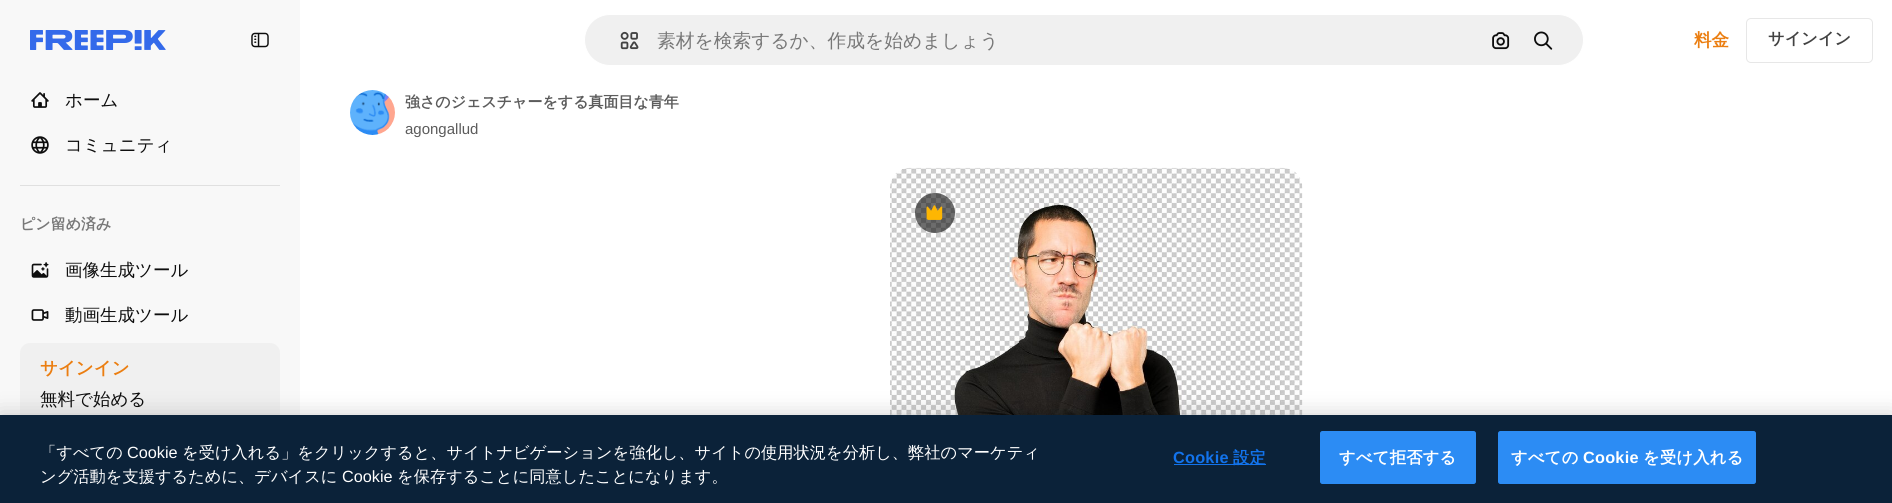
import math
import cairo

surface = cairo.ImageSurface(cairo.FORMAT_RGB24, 1892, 503)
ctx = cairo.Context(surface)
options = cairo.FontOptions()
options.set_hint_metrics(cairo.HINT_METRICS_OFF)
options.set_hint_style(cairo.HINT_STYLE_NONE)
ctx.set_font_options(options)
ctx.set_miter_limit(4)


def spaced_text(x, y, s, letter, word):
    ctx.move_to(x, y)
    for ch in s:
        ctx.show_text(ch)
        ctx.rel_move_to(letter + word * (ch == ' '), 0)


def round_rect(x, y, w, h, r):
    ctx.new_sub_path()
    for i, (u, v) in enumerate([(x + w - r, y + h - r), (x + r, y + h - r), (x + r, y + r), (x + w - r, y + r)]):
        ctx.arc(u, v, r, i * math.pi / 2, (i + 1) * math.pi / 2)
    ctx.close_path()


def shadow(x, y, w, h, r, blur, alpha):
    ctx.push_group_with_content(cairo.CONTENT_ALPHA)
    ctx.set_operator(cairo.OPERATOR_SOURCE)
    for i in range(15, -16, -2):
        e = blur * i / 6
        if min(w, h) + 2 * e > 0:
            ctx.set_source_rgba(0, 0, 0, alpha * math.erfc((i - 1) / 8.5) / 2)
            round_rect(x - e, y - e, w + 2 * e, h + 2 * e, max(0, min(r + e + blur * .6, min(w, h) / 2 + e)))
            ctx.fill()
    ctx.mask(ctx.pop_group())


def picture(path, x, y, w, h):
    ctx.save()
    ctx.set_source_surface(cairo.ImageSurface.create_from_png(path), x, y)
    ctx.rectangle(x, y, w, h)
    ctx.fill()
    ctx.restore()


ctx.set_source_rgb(1, 1, 1)
ctx.paint()
ctx.set_source_rgb(0.969, 0.969, 0.969)
ctx.rectangle(0, 0, 300, 415)
ctx.fill()
picture("img1.png", 30, 30, 136, 20)
picture("img2.png", 251, 32, 18, 16)
picture("img3.png", 31, 92, 18, 16)
ctx.select_font_face("WenQuanYi Zen Hei Medium")
ctx.set_font_size(17.5)
ctx.set_source_rgb(0.051, 0.051, 0.051)
ctx.move_to(65, 106)
ctx.show_text("ホーム")
picture("img4.png", 31, 136, 18, 18)
ctx.move_to(65, 151)
ctx.show_text("コミュニティ")
ctx.set_source_rgb(0.878, 0.878, 0.878)
ctx.rectangle(20, 185, 260, 1)
ctx.fill()
ctx.select_font_face("WenQuanYi Zen Hei", cairo.FONT_SLANT_NORMAL, cairo.FONT_WEIGHT_BOLD)
ctx.set_font_size(15)
ctx.set_source_rgb(0.471, 0.471, 0.471)
ctx.move_to(20, 229)
ctx.show_text("ピン留め済み")
picture("img5.png", 31, 262, 18, 16)
ctx.select_font_face("WenQuanYi Zen Hei Medium")
ctx.set_font_size(17.5)
ctx.set_source_rgb(0.051, 0.051, 0.051)
ctx.move_to(65, 276)
ctx.show_text("画像生成ツール")
picture("img6.png", 31, 309, 18, 12)
ctx.move_to(65, 321)
ctx.show_text("動画生成ツール")
ctx.set_source_rgb(0.941, 0.941, 0.941)
round_rect(20, 343, 260, 81, 10)
ctx.fill()
ctx.select_font_face("WenQuanYi Zen Hei", cairo.FONT_SLANT_NORMAL, cairo.FONT_WEIGHT_BOLD)
ctx.set_source_rgb(0.918, 0.494, 0.067)
ctx.move_to(40, 374)
ctx.show_text("サインイン")
ctx.select_font_face("WenQuanYi Zen Hei Medium")
ctx.set_source_rgb(0.051, 0.051, 0.051)
ctx.move_to(40, 405)
ctx.show_text("無料で始める")
ctx.set_source_rgb(0.941, 0.941, 0.941)
round_rect(584.5, 14.5, 999, 51, 25.5)
ctx.fill_preserve()
ctx.set_source_rgb(1, 1, 1)
ctx.set_line_width(1)
ctx.stroke()
picture("img7.png", 620, 31, 19, 19)
ctx.set_font_size(18.75)
ctx.set_source_rgb(0.471, 0.471, 0.471)
ctx.move_to(657, 47)
ctx.show_text("素材を検索するか、作成を始めましょう")
picture("img8.png", 1492, 32, 18, 18)
picture("img9.png", 1534, 31, 19, 19)
ctx.select_font_face("WenQuanYi Zen Hei", cairo.FONT_SLANT_NORMAL, cairo.FONT_WEIGHT_BOLD)
ctx.set_font_size(17.5)
ctx.set_source_rgb(0.918, 0.494, 0.067)
ctx.move_to(1694, 46)
ctx.show_text("料金")
round_rect(1746.5, 18.5, 126, 44, 4.5)
ctx.set_source_rgb(0.906, 0.906, 0.906)
ctx.stroke()
ctx.set_font_size(16.25)
ctx.set_source_rgb(0.259, 0.259, 0.259)
ctx.move_to(1768, 44)
ctx.show_text("サインイン")
picture("img10.png", 350, 90, 45, 45)
ctx.set_font_size(15)
ctx.set_source_rgb(0.361, 0.361, 0.361)
ctx.move_to(405, 107)
ctx.show_text("強さのジェスチャーをする真面目な青年")
ctx.select_font_face("Liberation Sans")
ctx.move_to(405, 134)
ctx.show_text("agongallud")
picture("img11.png", 890, 167, 413, 248)
ctx.set_source_rgba(0.051, 0.051, 0.051, 0.6)
ctx.arc(935, 213, 20, 0, 2 * math.pi)
ctx.fill()
picture("img12.png", 926, 205, 17, 15)
ctx.set_source_rgb(0, 0, 0)
shadow(0, 415, 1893, 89, 0, 11, 0.2)
ctx.set_source_rgb(0.043, 0.133, 0.224)
ctx.rectangle(0, 415, 1892, 88)
ctx.fill()
ctx.select_font_face("WenQuanYi Zen Hei Medium")
ctx.set_font_size(16.25)
ctx.set_source_rgb(1, 1, 1)
ctx.move_to(40, 458)
ctx.show_text("「すべての")
ctx.select_font_face("Liberation Sans")
ctx.move_to(127, 458)
ctx.show_text("Cookie")
ctx.select_font_face("WenQuanYi Zen Hei Medium")
ctx.move_to(182, 458)
ctx.show_text("を受け入れる」をクリックすると、サイトナビゲーションを強化し、サイトの使用状況を分析し、弊社のマーケティ")
ctx.move_to(40, 482)
ctx.show_text("ング活動を支援するために、デバイスに")
ctx.select_font_face("Liberation Sans")
ctx.move_to(342, 482)
ctx.show_text("Cookie")
ctx.select_font_face("WenQuanYi Zen Hei Medium")
ctx.move_to(397, 482)
ctx.show_text("を保存することに同意したことになります。")
ctx.select_font_face("Liberation Sans", cairo.FONT_SLANT_NORMAL, cairo.FONT_WEIGHT_BOLD)
ctx.set_source_rgb(0.071, 0.451, 0.922)
spaced_text(1173, 463, "Cookie", 0.25, 0)
ctx.rectangle(1174, 464, 92, 1)
ctx.fill()
ctx.select_font_face("WenQuanYi Zen Hei", cairo.FONT_SLANT_NORMAL, cairo.FONT_WEIGHT_BOLD)
spaced_text(1233, 463, "設定", 0.25, 0)
ctx.set_source_rgb(0.173, 0.549, 0.957)
round_rect(1320.5, 431.5, 155, 52, 2)
ctx.fill_preserve()
ctx.stroke()
ctx.set_source_rgb(1, 1, 1)
spaced_text(1339, 463, "すべて拒否する", 0.25, 0)
ctx.set_source_rgb(0.173, 0.549, 0.957)
round_rect(1498.5, 431.5, 257, 52, 2)
ctx.fill_preserve()
ctx.stroke()
ctx.set_source_rgb(1, 1, 1)
spaced_text(1511, 463, "すべての", 0.25, 0)
ctx.select_font_face("Liberation Sans", cairo.FONT_SLANT_NORMAL, cairo.FONT_WEIGHT_BOLD)
spaced_text(1583, 463, "Cookie", 0.25, 0)
ctx.select_font_face("WenQuanYi Zen Hei", cairo.FONT_SLANT_NORMAL, cairo.FONT_WEIGHT_BOLD)
spaced_text(1643, 463, "を受け入れる", 0.25, 0)
surface.write_to_png("page.png")
